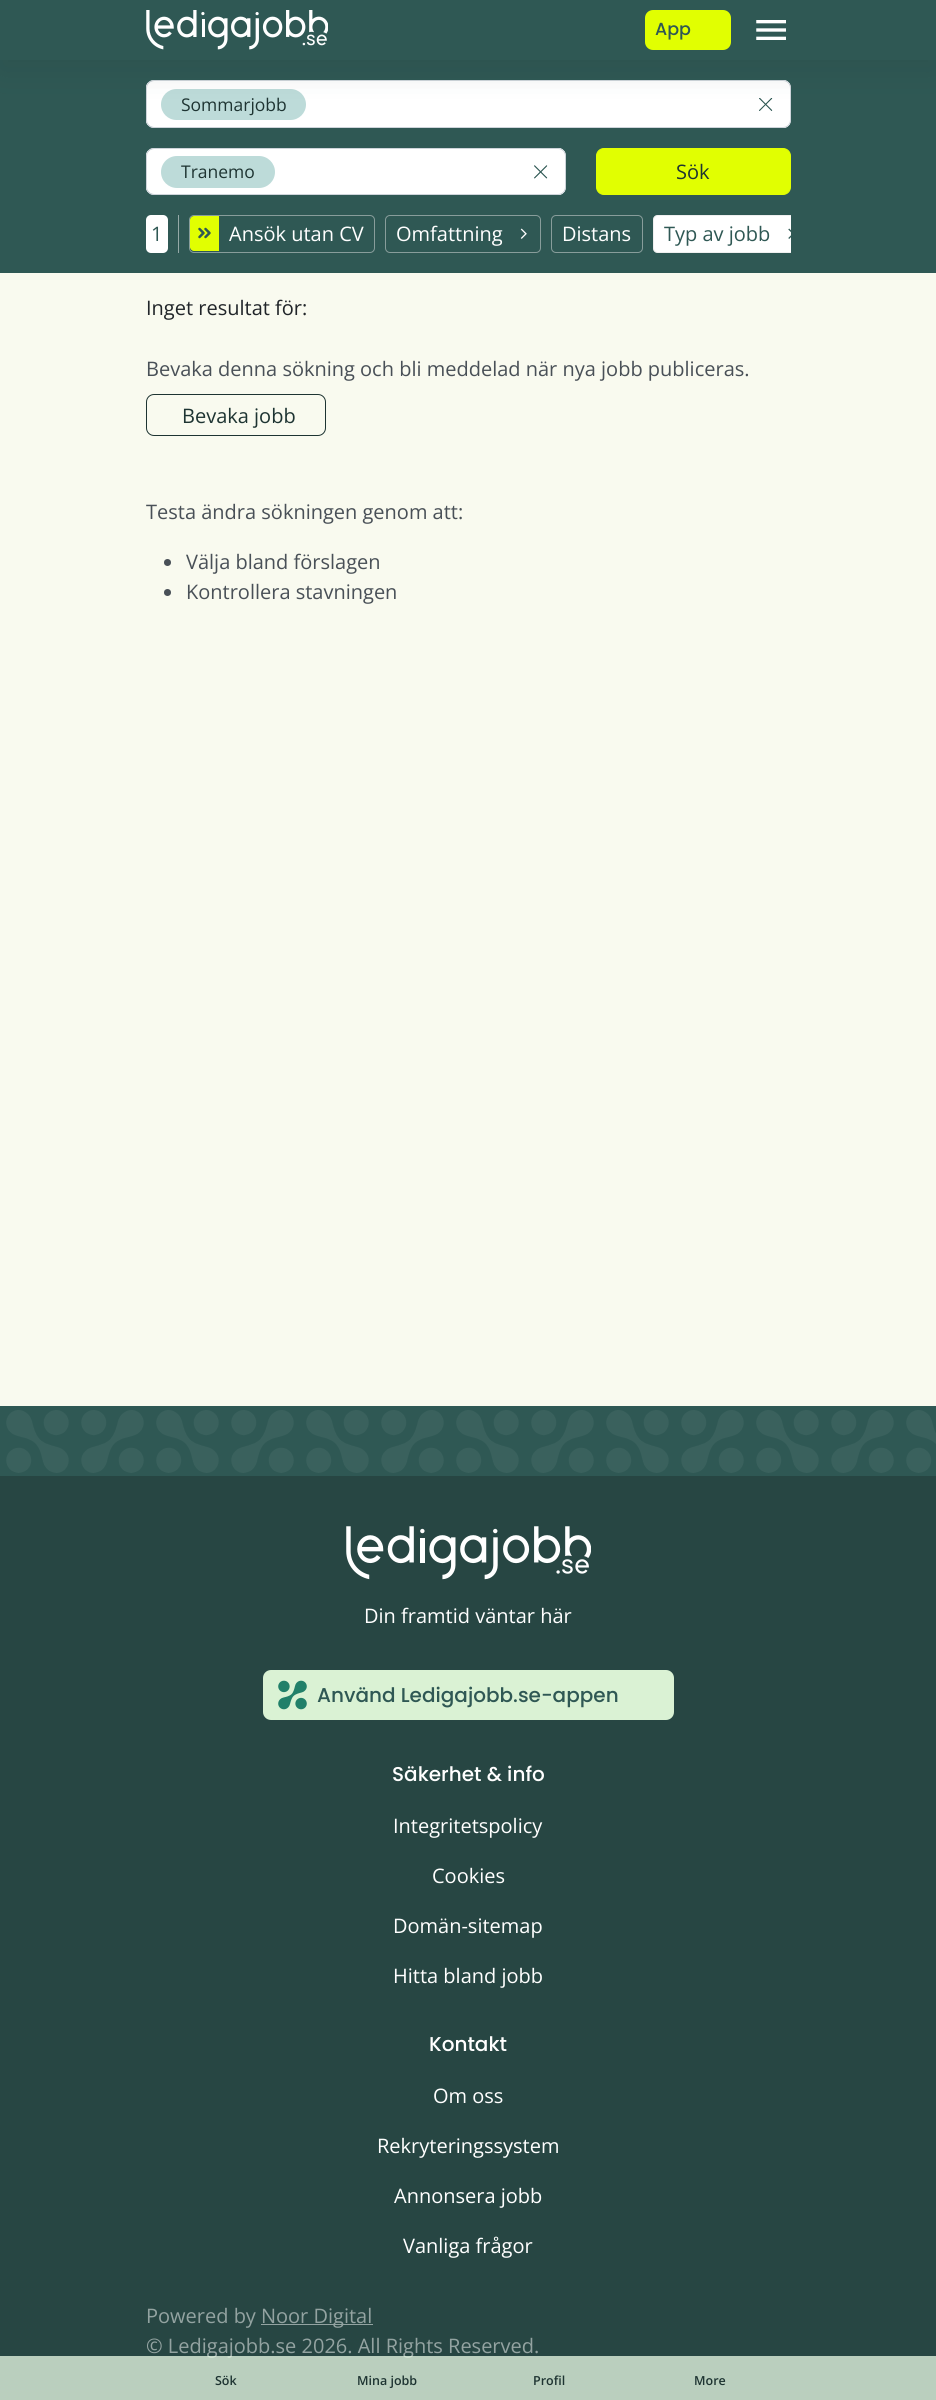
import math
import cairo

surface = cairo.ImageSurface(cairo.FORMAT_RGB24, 936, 2400)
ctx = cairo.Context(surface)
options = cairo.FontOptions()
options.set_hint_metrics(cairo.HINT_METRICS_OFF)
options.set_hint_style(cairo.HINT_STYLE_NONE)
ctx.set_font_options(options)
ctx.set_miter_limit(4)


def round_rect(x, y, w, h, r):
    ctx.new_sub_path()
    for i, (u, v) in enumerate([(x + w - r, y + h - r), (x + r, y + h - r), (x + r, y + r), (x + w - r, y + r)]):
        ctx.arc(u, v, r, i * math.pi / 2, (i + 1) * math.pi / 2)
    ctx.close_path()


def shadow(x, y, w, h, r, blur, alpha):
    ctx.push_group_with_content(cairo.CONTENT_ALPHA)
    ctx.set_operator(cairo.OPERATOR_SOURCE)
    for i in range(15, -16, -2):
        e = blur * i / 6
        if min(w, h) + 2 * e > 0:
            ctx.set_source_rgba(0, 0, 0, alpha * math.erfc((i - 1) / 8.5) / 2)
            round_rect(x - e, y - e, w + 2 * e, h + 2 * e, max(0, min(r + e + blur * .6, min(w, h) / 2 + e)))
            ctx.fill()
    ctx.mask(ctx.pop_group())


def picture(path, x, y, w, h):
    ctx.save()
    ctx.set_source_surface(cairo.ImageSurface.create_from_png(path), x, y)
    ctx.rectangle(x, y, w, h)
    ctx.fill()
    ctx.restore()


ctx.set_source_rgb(0.976, 0.98, 0.937)
ctx.paint()
ctx.set_source_rgb(0.184, 0.345, 0.329)
ctx.rectangle(0, 60, 936, 213)
ctx.fill()
ctx.set_source_rgb(1, 1, 1)
round_rect(146.5, 80.5, 644, 47, 7.5)
ctx.fill_preserve()
ctx.set_source_rgb(0.808, 0.831, 0.855)
ctx.set_line_width(1)
ctx.stroke()
ctx.save()
round_rect(146, 80, 645, 48, 8)
ctx.clip()
gradient = cairo.LinearGradient(148, 104, -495, 104)
gradient.add_color_stop_rgba(0.05, 1, 1, 1, 1)
gradient.add_color_stop_rgba(0.09, 1, 1, 1, 0)
ctx.set_source(gradient)
ctx.rectangle(146, 80, 2, 48)
ctx.fill()
gradient = cairo.LinearGradient(790, 104, 148, 104)
gradient.add_color_stop_rgba(0.05, 1, 1, 1, 1)
gradient.add_color_stop_rgba(0.09, 1, 1, 1, 0)
ctx.set_source(gradient)
ctx.rectangle(733, 80, 57, 48)
ctx.fill()
ctx.restore()
ctx.set_source_rgb(0.741, 0.859, 0.851)
round_rect(161, 89, 145, 31, 15.5)
ctx.fill()
round_rect(146.5, 80.5, 644, 47, 7.5)
ctx.set_source_rgb(0.808, 0.831, 0.855)
ctx.stroke()
picture("img3.png", 759, 98, 14, 13)
ctx.set_source_rgb(0.118, 0.204, 0.196)
shadow(0, 10, 936, 60, 0, 16, 0.15)
ctx.set_source_rgb(0.184, 0.345, 0.329)
ctx.rectangle(0, 0, 936, 60)
ctx.fill()
picture("img1.png", 146, 10, 182, 40)
ctx.set_source_rgb(0.882, 1, 0.004)
round_rect(645, 10, 86, 40, 8)
ctx.fill()
ctx.select_font_face("Poppins Medium")
ctx.set_font_size(17.5)
ctx.set_source_rgb(0.184, 0.345, 0.329)
ctx.move_to(655, 35)
ctx.show_text("App")
picture("img2.png", 756, 20, 30, 20)
ctx.select_font_face("Open Sans")
ctx.set_source_rgb(0.118, 0.204, 0.196)
ctx.move_to(181, 111)
ctx.show_text("Sommarjobb")
ctx.set_source_rgb(1, 1, 1)
round_rect(146.5, 148.5, 419, 46, 7.5)
ctx.fill_preserve()
ctx.set_source_rgb(0.808, 0.831, 0.855)
ctx.stroke()
ctx.save()
round_rect(146, 148, 420, 47, 8)
ctx.clip()
gradient = cairo.LinearGradient(148, 171, -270, 171)
gradient.add_color_stop_rgba(0.07, 1, 1, 1, 1)
gradient.add_color_stop_rgba(0.14, 1, 1, 1, 0)
ctx.set_source(gradient)
ctx.rectangle(146, 148, 2, 47)
ctx.fill()
gradient = cairo.LinearGradient(565, 171, 148, 171)
gradient.add_color_stop_rgba(0.07, 1, 1, 1, 1)
gradient.add_color_stop_rgba(0.14, 1, 1, 1, 0)
ctx.set_source(gradient)
ctx.rectangle(507, 148, 58, 47)
ctx.fill()
ctx.restore()
ctx.set_source_rgb(0.741, 0.859, 0.851)
round_rect(161, 156, 114, 32, 16)
ctx.fill()
round_rect(146.5, 148.5, 419, 46, 7.5)
ctx.set_source_rgb(0.808, 0.831, 0.855)
ctx.stroke()
ctx.set_source_rgb(0.118, 0.204, 0.196)
ctx.move_to(181, 178)
ctx.show_text("Tranemo")
picture("img4.png", 534, 165, 14, 14)
ctx.set_source_rgb(0.882, 1, 0.004)
round_rect(596.5, 148.5, 194, 46, 7.5)
ctx.fill_preserve()
ctx.stroke()
ctx.set_font_size(20)
ctx.set_source_rgb(0.118, 0.204, 0.196)
ctx.move_to(676, 179)
ctx.show_text("Sök")
ctx.set_source_rgb(1, 1, 1)
round_rect(146, 215, 22, 38, 5)
ctx.fill()
ctx.set_source_rgb(0.184, 0.345, 0.329)
ctx.move_to(151, 241)
ctx.show_text("1")
ctx.set_source_rgb(0.584, 0.663, 0.655)
ctx.rectangle(178, 215, 1, 38)
ctx.fill()
round_rect(189.5, 215.5, 185, 37, 4.5)
ctx.set_source_rgb(0.533, 0.616, 0.608)
ctx.stroke()
ctx.set_source_rgb(0.882, 1, 0.004)
ctx.new_path()
ctx.move_to(194, 216)
ctx.line_to(219, 216)
ctx.line_to(219, 251)
ctx.line_to(194, 251)
ctx.curve_to(192, 251, 190, 249, 190, 247)
ctx.line_to(190, 220)
ctx.curve_to(190, 218, 192, 216, 194, 216)
ctx.close_path()
ctx.fill()
ctx.new_path()
ctx.move_to(199.5, 237)
ctx.line_to(203.5, 233)
ctx.line_to(199.5, 229)
ctx.move_to(205.5, 237)
ctx.line_to(209.5, 233)
ctx.line_to(205.5, 229)
ctx.set_source_rgb(0.184, 0.345, 0.329)
ctx.set_line_width(2.5)
ctx.set_line_cap(cairo.LINE_CAP_ROUND)
ctx.set_line_join(cairo.LINE_JOIN_ROUND)
ctx.stroke()
ctx.set_source_rgb(1, 1, 1)
ctx.move_to(229, 241)
ctx.show_text("Ansök utan CV")
round_rect(385.5, 215.5, 155, 37, 4.5)
ctx.set_source_rgb(0.533, 0.616, 0.608)
ctx.set_line_width(1)
ctx.set_line_cap(cairo.LINE_CAP_BUTT)
ctx.set_line_join(cairo.LINE_JOIN_MITER)
ctx.stroke()
ctx.set_source_rgb(1, 1, 1)
ctx.move_to(396, 241)
ctx.show_text("Omfattning")
picture("img5.png", 520, 228, 7, 11)
round_rect(551.5, 215.5, 91, 37, 4.5)
ctx.set_source_rgb(0.533, 0.616, 0.608)
ctx.stroke()
ctx.set_source_rgb(1, 1, 1)
ctx.move_to(562, 241)
ctx.show_text("Distans")
ctx.new_path()
ctx.move_to(658, 215)
ctx.line_to(791, 215)
ctx.line_to(791, 253)
ctx.line_to(658, 253)
ctx.curve_to(655, 253, 653, 251, 653, 248)
ctx.line_to(653, 220)
ctx.curve_to(653, 217, 655, 215, 658, 215)
ctx.close_path()
ctx.fill()
ctx.save()
ctx.rectangle(189, 215, 602, 38)
ctx.clip()
round_rect(653.5, 215.5, 155, 37, 4.5)
ctx.set_source_rgba(0.882, 0.882, 0.882, 0.5)
ctx.stroke()
ctx.restore()
ctx.set_source_rgb(0.184, 0.345, 0.329)
ctx.move_to(664, 241)
ctx.show_text("Typ av jobb")
picture("img6.png", 788, 228, 3, 11)
ctx.set_source_rgb(0.129, 0.145, 0.161)
ctx.move_to(146, 315)
ctx.show_text("Inget resultat för:")
ctx.set_source_rgb(0.286, 0.314, 0.341)
ctx.move_to(146, 376)
ctx.show_text("Bevaka denna sökning och bli meddelad när nya jobb publiceras.")
round_rect(146.5, 394.5, 179, 41, 7.5)
ctx.set_source_rgb(0.118, 0.204, 0.196)
ctx.stroke()
ctx.move_to(182, 423)
ctx.show_text("Bevaka jobb")
ctx.set_source_rgb(0.286, 0.314, 0.341)
ctx.move_to(146, 519)
ctx.show_text("Testa ändra sökningen genom att:")
ctx.new_path()
ctx.arc(167.5, 562.5, 3.5, 0, 2 * math.pi)
ctx.fill()
ctx.move_to(186, 569)
ctx.show_text("Välja bland förslagen")
ctx.new_path()
ctx.arc(167.5, 592.5, 3.5, 0, 2 * math.pi)
ctx.fill()
ctx.move_to(186, 599)
ctx.show_text("Kontrollera stavningen")
ctx.set_source_rgb(0.153, 0.275, 0.263)
ctx.rectangle(0, 1476, 936, 924)
ctx.fill()
ctx.set_source_rgb(0.184, 0.345, 0.329)
ctx.rectangle(0, 1406, 936, 70)
ctx.fill()
picture("img7.png", 6, 1410, 930, 63)
picture("img8.png", 346, 1526, 245, 54)
ctx.set_source_rgb(1, 1, 1)
ctx.move_to(364, 1623)
ctx.show_text("Din framtid väntar här")
ctx.set_source_rgb(0.855, 0.949, 0.831)
round_rect(263, 1670, 411, 50, 8)
ctx.fill()
picture("img9.png", 278, 1680, 29, 30)
ctx.select_font_face("Poppins Medium")
ctx.set_source_rgb(0.184, 0.345, 0.329)
ctx.move_to(317, 1702)
ctx.show_text("Använd Ledigajobb.se-appen")
ctx.set_source_rgb(1, 1, 1)
ctx.move_to(392, 1781)
ctx.show_text("Säkerhet & info")
ctx.select_font_face("Open Sans")
ctx.move_to(393, 1833)
ctx.show_text("Integritetspolicy")
ctx.move_to(432, 1883)
ctx.show_text("Cookies")
ctx.move_to(393, 1933)
ctx.show_text("Domän-sitemap")
ctx.move_to(393, 1983)
ctx.show_text("Hitta bland jobb")
ctx.select_font_face("Poppins Medium")
ctx.move_to(429, 2051)
ctx.show_text("Kontakt")
ctx.select_font_face("Open Sans")
ctx.move_to(433, 2103)
ctx.show_text("Om oss")
ctx.move_to(377, 2153)
ctx.show_text("Rekryteringssystem")
ctx.move_to(394, 2203)
ctx.show_text("Annonsera jobb")
ctx.move_to(403, 2253)
ctx.show_text("Vanliga frågor")
ctx.set_source_rgb(0.576, 0.639, 0.631)
ctx.move_to(146, 2323)
ctx.show_text("Powered by")
ctx.rectangle(261, 2324, 112, 1)
ctx.fill()
ctx.move_to(261, 2323)
ctx.show_text("Noor Digital")
ctx.move_to(146, 2353)
ctx.show_text("© Ledigajobb.se 2026. All Rights Reserved.")
ctx.set_source_rgba(0.918, 0.988, 0.902, 0.75)
ctx.rectangle(0, 2356, 936, 44)
ctx.fill()
ctx.select_font_face("Open Sans SemiBold")
ctx.set_font_size(12.5)
ctx.set_source_rgb(0.118, 0.204, 0.196)
ctx.move_to(215, 2385)
ctx.show_text("Sök")
ctx.move_to(357, 2385)
ctx.show_text("Mina jobb")
ctx.move_to(533, 2385)
ctx.show_text("Profil")
ctx.move_to(694, 2385)
ctx.show_text("More")
surface.write_to_png("page.png")
